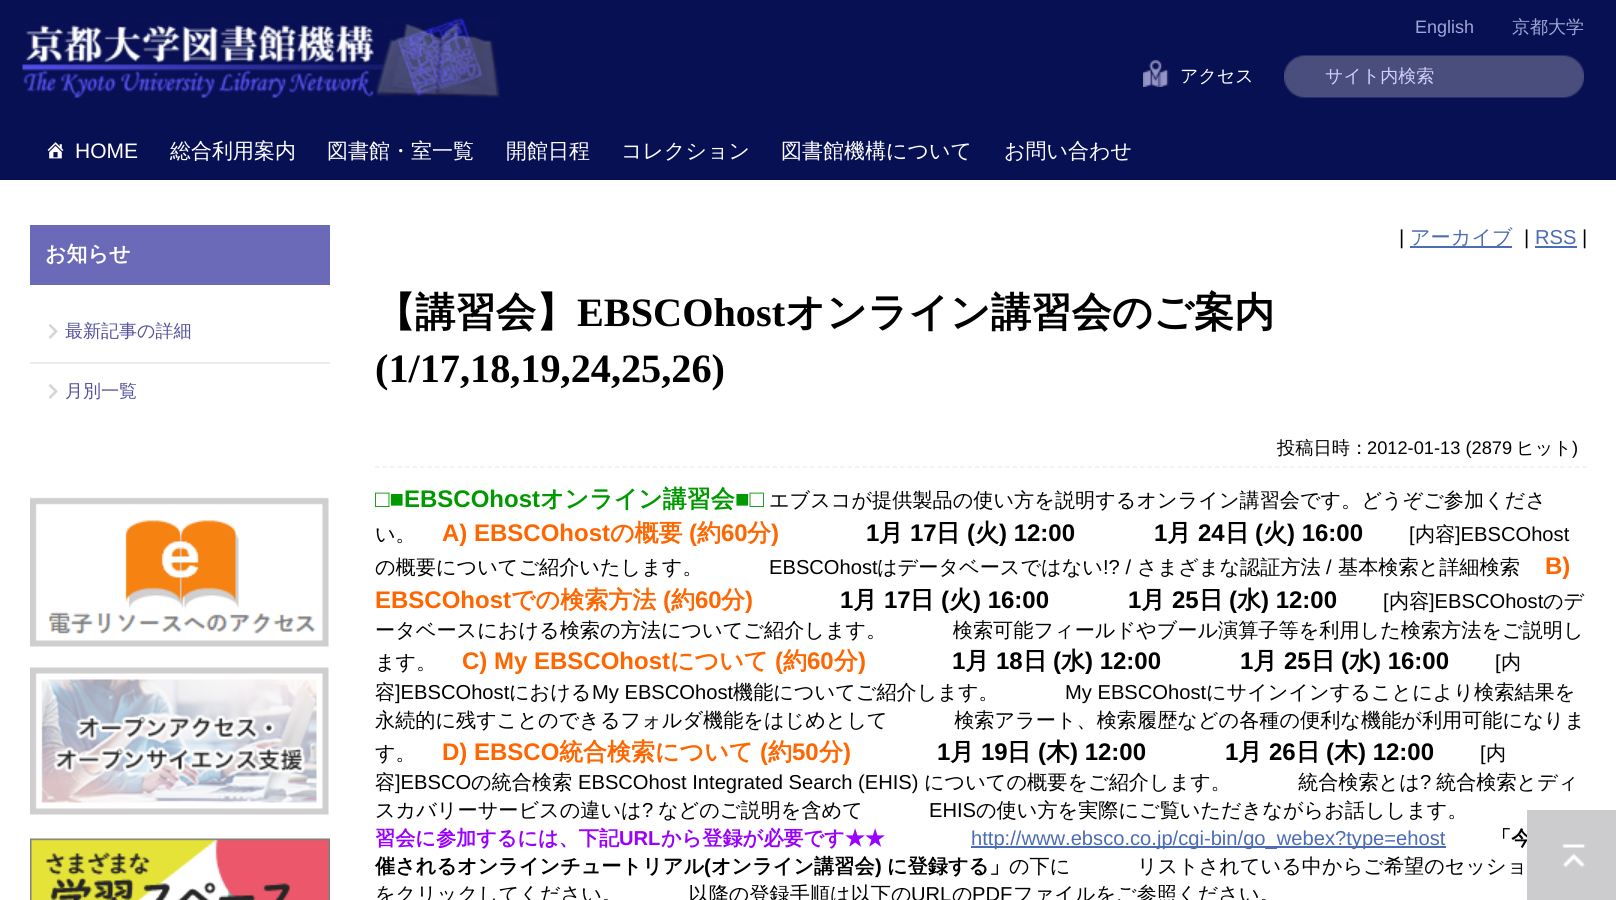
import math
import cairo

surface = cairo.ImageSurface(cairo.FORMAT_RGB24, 1616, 900)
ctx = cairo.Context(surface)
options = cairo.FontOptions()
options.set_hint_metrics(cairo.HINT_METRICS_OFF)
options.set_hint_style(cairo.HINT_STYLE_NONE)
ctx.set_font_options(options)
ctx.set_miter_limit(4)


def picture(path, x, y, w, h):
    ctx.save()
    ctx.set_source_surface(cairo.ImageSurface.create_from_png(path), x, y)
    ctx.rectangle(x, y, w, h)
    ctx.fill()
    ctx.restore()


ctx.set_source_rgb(1, 1, 1)
ctx.paint()
ctx.set_source_rgb(0.035, 0.063, 0.329)
ctx.rectangle(0, 0, 1616, 180)
ctx.fill()
picture("img1.png", 22, 18, 478, 80)
ctx.select_font_face("Liberation Sans")
ctx.set_font_size(18)
ctx.set_source_rgb(0.631, 0.651, 0.839)
ctx.move_to(1415, 33)
ctx.show_text("English")
ctx.select_font_face("WenQuanYi Zen Hei Medium")
ctx.move_to(1512, 33)
ctx.show_text("京都大学")
picture("img2.png", 1143, 60, 26, 27)
ctx.set_source_rgb(1, 1, 1)
ctx.move_to(1180, 82)
ctx.show_text("アクセス")
picture("img3.png", 1284, 55, 300, 43)
ctx.set_source_rgb(0.82, 0.816, 0.98)
ctx.move_to(1325, 82)
ctx.show_text("サイト内検索")
picture("img4.png", 47, 142, 17, 17)
ctx.select_font_face("Liberation Sans")
ctx.set_font_size(21)
ctx.set_source_rgb(1, 1, 1)
ctx.move_to(75, 158)
ctx.show_text("HOME")
ctx.select_font_face("WenQuanYi Zen Hei Medium")
ctx.move_to(170, 158)
ctx.show_text("総合利用案内")
ctx.move_to(327, 158)
ctx.show_text("図書館・室一覧")
ctx.move_to(506, 158)
ctx.show_text("開館日程")
ctx.move_to(621, 158)
ctx.show_text("コレクション")
ctx.move_to(781, 158)
ctx.show_text("図書館機構について")
ctx.move_to(1004, 158)
ctx.show_text("お問い合わせ")
ctx.set_source_rgb(0.416, 0.416, 0.725)
ctx.rectangle(30, 225, 300, 60)
ctx.fill()
ctx.select_font_face("WenQuanYi Zen Hei", cairo.FONT_SLANT_NORMAL, cairo.FONT_WEIGHT_BOLD)
ctx.set_source_rgb(1, 1, 1)
ctx.move_to(45, 261)
ctx.show_text("お知らせ")
ctx.set_source_rgb(0.925, 0.925, 0.925)
ctx.rectangle(30, 362, 300, 2)
ctx.fill()
picture("img5.png", 48, 324, 10, 15)
ctx.select_font_face("WenQuanYi Zen Hei Medium")
ctx.set_font_size(18)
ctx.set_source_rgb(0.325, 0.318, 0.612)
ctx.move_to(65, 337)
ctx.show_text("最新記事の詳細")
picture("img5.png", 48, 384, 10, 15)
ctx.move_to(65, 397)
ctx.show_text("月別一覧")
picture("img6.png", 30, 497, 300, 150)
picture("img7.png", 30, 667, 300, 150)
picture("img8.png", 30, 838, 300, 62)
ctx.select_font_face("Liberation Sans")
ctx.set_font_size(20.15)
ctx.set_source_rgb(0, 0, 0)
ctx.move_to(1399, 244)
ctx.show_text("|")
ctx.set_source_rgb(0.298, 0.424, 0.702)
ctx.rectangle(1410, 246, 102, 2)
ctx.fill()
ctx.select_font_face("WenQuanYi Zen Hei Medium")
ctx.move_to(1410, 244)
ctx.show_text("アーカイブ")
ctx.select_font_face("Liberation Sans")
ctx.set_source_rgb(0, 0, 0)
ctx.move_to(1524, 244)
ctx.show_text("|")
ctx.set_source_rgb(0.298, 0.424, 0.702)
ctx.move_to(1535, 244)
ctx.show_text("RSS")
ctx.rectangle(1535, 246, 42, 2)
ctx.fill()
ctx.set_source_rgb(0, 0, 0)
ctx.move_to(1582, 244)
ctx.show_text("|")
ctx.select_font_face("WenQuanYi Zen Hei", cairo.FONT_SLANT_NORMAL, cairo.FONT_WEIGHT_BOLD)
ctx.set_font_size(40.25)
ctx.move_to(375, 326)
ctx.show_text("【講習会】")
ctx.select_font_face("Liberation Serif", cairo.FONT_SLANT_NORMAL, cairo.FONT_WEIGHT_BOLD)
ctx.move_to(577, 326)
ctx.show_text("EBSCOhost")
ctx.select_font_face("WenQuanYi Zen Hei", cairo.FONT_SLANT_NORMAL, cairo.FONT_WEIGHT_BOLD)
ctx.move_to(785, 326)
ctx.show_text("オンライン講習会のご案内")
ctx.select_font_face("Liberation Serif", cairo.FONT_SLANT_NORMAL, cairo.FONT_WEIGHT_BOLD)
ctx.move_to(375, 382)
ctx.show_text("(1/17,18,19,24,25,26)")
ctx.new_path()
ctx.move_to(375, 467)
ctx.line_to(1587, 467)
ctx.set_source_rgb(0.937, 0.937, 0.937)
ctx.set_line_width(1.5)
ctx.set_dash([4.5, 3])
ctx.stroke()
ctx.select_font_face("WenQuanYi Zen Hei Medium")
ctx.set_font_size(18.25)
ctx.set_source_rgb(0, 0, 0)
ctx.move_to(1277, 454)
ctx.show_text("投稿日時：")
ctx.select_font_face("Liberation Sans")
ctx.move_to(1367, 454)
ctx.show_text("2012-01-13 (2879")
ctx.select_font_face("WenQuanYi Zen Hei Medium")
ctx.move_to(1516, 454)
ctx.show_text("ヒット")
ctx.select_font_face("Liberation Sans")
ctx.move_to(1572, 454)
ctx.show_text(")")
ctx.select_font_face("Liberation Sans", cairo.FONT_SLANT_NORMAL, cairo.FONT_WEIGHT_BOLD)
ctx.set_font_size(24)
ctx.set_source_rgb(0, 0.6, 0)
ctx.move_to(375, 507)
ctx.show_text("□■EBSCOhost")
ctx.select_font_face("WenQuanYi Zen Hei", cairo.FONT_SLANT_NORMAL, cairo.FONT_WEIGHT_BOLD)
ctx.move_to(540, 507)
ctx.show_text("オンライン講習会")
ctx.select_font_face("Liberation Sans", cairo.FONT_SLANT_NORMAL, cairo.FONT_WEIGHT_BOLD)
ctx.move_to(735, 507)
ctx.show_text("■□")
ctx.select_font_face("WenQuanYi Zen Hei Medium")
ctx.set_font_size(20.15)
ctx.set_source_rgb(0, 0, 0)
ctx.move_to(769, 507)
ctx.show_text("エブスコが提供製品の使い方を説明するオンライン講習会です。どうぞご参加くださ")
ctx.move_to(375, 541)
ctx.show_text("い。")
ctx.select_font_face("Liberation Sans", cairo.FONT_SLANT_NORMAL, cairo.FONT_WEIGHT_BOLD)
ctx.set_font_size(24)
ctx.set_source_rgb(1, 0.4, 0)
ctx.move_to(442, 541)
ctx.show_text("A) EBSCOhost")
ctx.select_font_face("WenQuanYi Zen Hei", cairo.FONT_SLANT_NORMAL, cairo.FONT_WEIGHT_BOLD)
ctx.move_to(610, 541)
ctx.show_text("の概要")
ctx.select_font_face("Liberation Sans", cairo.FONT_SLANT_NORMAL, cairo.FONT_WEIGHT_BOLD)
ctx.move_to(689, 541)
ctx.show_text("(")
ctx.select_font_face("WenQuanYi Zen Hei", cairo.FONT_SLANT_NORMAL, cairo.FONT_WEIGHT_BOLD)
ctx.move_to(697, 541)
ctx.show_text("約")
ctx.select_font_face("Liberation Sans", cairo.FONT_SLANT_NORMAL, cairo.FONT_WEIGHT_BOLD)
ctx.move_to(721, 541)
ctx.show_text("60")
ctx.select_font_face("WenQuanYi Zen Hei", cairo.FONT_SLANT_NORMAL, cairo.FONT_WEIGHT_BOLD)
ctx.move_to(747, 541)
ctx.show_text("分")
ctx.select_font_face("Liberation Sans", cairo.FONT_SLANT_NORMAL, cairo.FONT_WEIGHT_BOLD)
ctx.move_to(771, 541)
ctx.show_text(")")
ctx.set_source_rgb(0, 0, 0)
ctx.move_to(866, 541)
ctx.show_text("1")
ctx.select_font_face("WenQuanYi Zen Hei", cairo.FONT_SLANT_NORMAL, cairo.FONT_WEIGHT_BOLD)
ctx.move_to(879, 541)
ctx.show_text("月")
ctx.select_font_face("Liberation Sans", cairo.FONT_SLANT_NORMAL, cairo.FONT_WEIGHT_BOLD)
ctx.move_to(910, 541)
ctx.show_text("17")
ctx.select_font_face("WenQuanYi Zen Hei", cairo.FONT_SLANT_NORMAL, cairo.FONT_WEIGHT_BOLD)
ctx.move_to(936, 541)
ctx.show_text("日")
ctx.select_font_face("Liberation Sans", cairo.FONT_SLANT_NORMAL, cairo.FONT_WEIGHT_BOLD)
ctx.move_to(967, 541)
ctx.show_text("(")
ctx.select_font_face("WenQuanYi Zen Hei", cairo.FONT_SLANT_NORMAL, cairo.FONT_WEIGHT_BOLD)
ctx.move_to(975, 541)
ctx.show_text("火")
ctx.select_font_face("Liberation Sans", cairo.FONT_SLANT_NORMAL, cairo.FONT_WEIGHT_BOLD)
ctx.move_to(999, 541)
ctx.show_text(") 12:00")
ctx.move_to(1154, 541)
ctx.show_text("1")
ctx.select_font_face("WenQuanYi Zen Hei", cairo.FONT_SLANT_NORMAL, cairo.FONT_WEIGHT_BOLD)
ctx.move_to(1167, 541)
ctx.show_text("月")
ctx.select_font_face("Liberation Sans", cairo.FONT_SLANT_NORMAL, cairo.FONT_WEIGHT_BOLD)
ctx.move_to(1198, 541)
ctx.show_text("24")
ctx.select_font_face("WenQuanYi Zen Hei", cairo.FONT_SLANT_NORMAL, cairo.FONT_WEIGHT_BOLD)
ctx.move_to(1225, 541)
ctx.show_text("日")
ctx.select_font_face("Liberation Sans", cairo.FONT_SLANT_NORMAL, cairo.FONT_WEIGHT_BOLD)
ctx.move_to(1255, 541)
ctx.show_text("(")
ctx.select_font_face("WenQuanYi Zen Hei", cairo.FONT_SLANT_NORMAL, cairo.FONT_WEIGHT_BOLD)
ctx.move_to(1263, 541)
ctx.show_text("火")
ctx.select_font_face("Liberation Sans", cairo.FONT_SLANT_NORMAL, cairo.FONT_WEIGHT_BOLD)
ctx.move_to(1287, 541)
ctx.show_text(") 16:00")
ctx.select_font_face("Liberation Sans")
ctx.set_font_size(20.15)
ctx.move_to(1409, 541)
ctx.show_text("[")
ctx.select_font_face("WenQuanYi Zen Hei Medium")
ctx.move_to(1415, 541)
ctx.show_text("内容")
ctx.select_font_face("Liberation Sans")
ctx.move_to(1455, 541)
ctx.show_text("]EBSCOhost")
ctx.select_font_face("WenQuanYi Zen Hei Medium")
ctx.move_to(375, 574)
ctx.show_text("の概要についてご紹介いたします。")
ctx.select_font_face("Liberation Sans")
ctx.move_to(769, 574)
ctx.show_text("EBSCOhost")
ctx.select_font_face("WenQuanYi Zen Hei Medium")
ctx.move_to(877, 574)
ctx.show_text("はデータベースではない")
ctx.select_font_face("Liberation Sans")
ctx.move_to(1103, 574)
ctx.show_text("!? /")
ctx.select_font_face("WenQuanYi Zen Hei Medium")
ctx.move_to(1137, 574)
ctx.show_text("さまざまな認証方法")
ctx.select_font_face("Liberation Sans")
ctx.move_to(1326, 574)
ctx.show_text("/")
ctx.select_font_face("WenQuanYi Zen Hei Medium")
ctx.move_to(1338, 574)
ctx.show_text("基本検索と詳細検索")
ctx.select_font_face("Liberation Sans", cairo.FONT_SLANT_NORMAL, cairo.FONT_WEIGHT_BOLD)
ctx.set_font_size(24)
ctx.set_source_rgb(1, 0.4, 0)
ctx.move_to(1545, 574)
ctx.show_text("B)")
ctx.move_to(375, 608)
ctx.show_text("EBSCOhost")
ctx.select_font_face("WenQuanYi Zen Hei", cairo.FONT_SLANT_NORMAL, cairo.FONT_WEIGHT_BOLD)
ctx.move_to(511, 608)
ctx.show_text("での検索方法")
ctx.select_font_face("Liberation Sans", cairo.FONT_SLANT_NORMAL, cairo.FONT_WEIGHT_BOLD)
ctx.move_to(663, 608)
ctx.show_text("(")
ctx.select_font_face("WenQuanYi Zen Hei", cairo.FONT_SLANT_NORMAL, cairo.FONT_WEIGHT_BOLD)
ctx.move_to(671, 608)
ctx.show_text("約")
ctx.select_font_face("Liberation Sans", cairo.FONT_SLANT_NORMAL, cairo.FONT_WEIGHT_BOLD)
ctx.move_to(695, 608)
ctx.show_text("60")
ctx.select_font_face("WenQuanYi Zen Hei", cairo.FONT_SLANT_NORMAL, cairo.FONT_WEIGHT_BOLD)
ctx.move_to(721, 608)
ctx.show_text("分")
ctx.select_font_face("Liberation Sans", cairo.FONT_SLANT_NORMAL, cairo.FONT_WEIGHT_BOLD)
ctx.move_to(745, 608)
ctx.show_text(")")
ctx.set_source_rgb(0, 0, 0)
ctx.move_to(840, 608)
ctx.show_text("1")
ctx.select_font_face("WenQuanYi Zen Hei", cairo.FONT_SLANT_NORMAL, cairo.FONT_WEIGHT_BOLD)
ctx.move_to(853, 608)
ctx.show_text("月")
ctx.select_font_face("Liberation Sans", cairo.FONT_SLANT_NORMAL, cairo.FONT_WEIGHT_BOLD)
ctx.move_to(884, 608)
ctx.show_text("17")
ctx.select_font_face("WenQuanYi Zen Hei", cairo.FONT_SLANT_NORMAL, cairo.FONT_WEIGHT_BOLD)
ctx.move_to(910, 608)
ctx.show_text("日")
ctx.select_font_face("Liberation Sans", cairo.FONT_SLANT_NORMAL, cairo.FONT_WEIGHT_BOLD)
ctx.move_to(941, 608)
ctx.show_text("(")
ctx.select_font_face("WenQuanYi Zen Hei", cairo.FONT_SLANT_NORMAL, cairo.FONT_WEIGHT_BOLD)
ctx.move_to(949, 608)
ctx.show_text("火")
ctx.select_font_face("Liberation Sans", cairo.FONT_SLANT_NORMAL, cairo.FONT_WEIGHT_BOLD)
ctx.move_to(973, 608)
ctx.show_text(") 16:00")
ctx.move_to(1128, 608)
ctx.show_text("1")
ctx.select_font_face("WenQuanYi Zen Hei", cairo.FONT_SLANT_NORMAL, cairo.FONT_WEIGHT_BOLD)
ctx.move_to(1141, 608)
ctx.show_text("月")
ctx.select_font_face("Liberation Sans", cairo.FONT_SLANT_NORMAL, cairo.FONT_WEIGHT_BOLD)
ctx.move_to(1172, 608)
ctx.show_text("25")
ctx.select_font_face("WenQuanYi Zen Hei", cairo.FONT_SLANT_NORMAL, cairo.FONT_WEIGHT_BOLD)
ctx.move_to(1199, 608)
ctx.show_text("日")
ctx.select_font_face("Liberation Sans", cairo.FONT_SLANT_NORMAL, cairo.FONT_WEIGHT_BOLD)
ctx.move_to(1229, 608)
ctx.show_text("(")
ctx.select_font_face("WenQuanYi Zen Hei", cairo.FONT_SLANT_NORMAL, cairo.FONT_WEIGHT_BOLD)
ctx.move_to(1237, 608)
ctx.show_text("水")
ctx.select_font_face("Liberation Sans", cairo.FONT_SLANT_NORMAL, cairo.FONT_WEIGHT_BOLD)
ctx.move_to(1261, 608)
ctx.show_text(") 12:00")
ctx.select_font_face("Liberation Sans")
ctx.set_font_size(20.15)
ctx.move_to(1383, 608)
ctx.show_text("[")
ctx.select_font_face("WenQuanYi Zen Hei Medium")
ctx.move_to(1389, 608)
ctx.show_text("内容")
ctx.select_font_face("Liberation Sans")
ctx.move_to(1429, 608)
ctx.show_text("]EBSCOhost")
ctx.select_font_face("WenQuanYi Zen Hei Medium")
ctx.move_to(1543, 608)
ctx.show_text("のデ")
ctx.move_to(375, 637)
ctx.show_text("ータベースにおける検索の方法についてご紹介します。 　　　検索可能フィールドやブール演算子等を利用した検索方法をご説明し")
ctx.move_to(375, 669)
ctx.show_text("ます。")
ctx.select_font_face("Liberation Sans", cairo.FONT_SLANT_NORMAL, cairo.FONT_WEIGHT_BOLD)
ctx.set_font_size(24)
ctx.set_source_rgb(1, 0.4, 0)
ctx.move_to(462, 669)
ctx.show_text("C) My EBSCOhost")
ctx.select_font_face("WenQuanYi Zen Hei", cairo.FONT_SLANT_NORMAL, cairo.FONT_WEIGHT_BOLD)
ctx.move_to(670, 669)
ctx.show_text("について")
ctx.select_font_face("Liberation Sans", cairo.FONT_SLANT_NORMAL, cairo.FONT_WEIGHT_BOLD)
ctx.move_to(775, 669)
ctx.show_text("(")
ctx.select_font_face("WenQuanYi Zen Hei", cairo.FONT_SLANT_NORMAL, cairo.FONT_WEIGHT_BOLD)
ctx.move_to(783, 669)
ctx.show_text("約")
ctx.select_font_face("Liberation Sans", cairo.FONT_SLANT_NORMAL, cairo.FONT_WEIGHT_BOLD)
ctx.move_to(807, 669)
ctx.show_text("60")
ctx.select_font_face("WenQuanYi Zen Hei", cairo.FONT_SLANT_NORMAL, cairo.FONT_WEIGHT_BOLD)
ctx.move_to(834, 669)
ctx.show_text("分")
ctx.select_font_face("Liberation Sans", cairo.FONT_SLANT_NORMAL, cairo.FONT_WEIGHT_BOLD)
ctx.move_to(858, 669)
ctx.show_text(")")
ctx.set_source_rgb(0, 0, 0)
ctx.move_to(952, 669)
ctx.show_text("1")
ctx.select_font_face("WenQuanYi Zen Hei", cairo.FONT_SLANT_NORMAL, cairo.FONT_WEIGHT_BOLD)
ctx.move_to(965, 669)
ctx.show_text("月")
ctx.select_font_face("Liberation Sans", cairo.FONT_SLANT_NORMAL, cairo.FONT_WEIGHT_BOLD)
ctx.move_to(996, 669)
ctx.show_text("18")
ctx.select_font_face("WenQuanYi Zen Hei", cairo.FONT_SLANT_NORMAL, cairo.FONT_WEIGHT_BOLD)
ctx.move_to(1023, 669)
ctx.show_text("日")
ctx.select_font_face("Liberation Sans", cairo.FONT_SLANT_NORMAL, cairo.FONT_WEIGHT_BOLD)
ctx.move_to(1053, 669)
ctx.show_text("(")
ctx.select_font_face("WenQuanYi Zen Hei", cairo.FONT_SLANT_NORMAL, cairo.FONT_WEIGHT_BOLD)
ctx.move_to(1061, 669)
ctx.show_text("水")
ctx.select_font_face("Liberation Sans", cairo.FONT_SLANT_NORMAL, cairo.FONT_WEIGHT_BOLD)
ctx.move_to(1085, 669)
ctx.show_text(") 12:00")
ctx.move_to(1240, 669)
ctx.show_text("1")
ctx.select_font_face("WenQuanYi Zen Hei", cairo.FONT_SLANT_NORMAL, cairo.FONT_WEIGHT_BOLD)
ctx.move_to(1253, 669)
ctx.show_text("月")
ctx.select_font_face("Liberation Sans", cairo.FONT_SLANT_NORMAL, cairo.FONT_WEIGHT_BOLD)
ctx.move_to(1284, 669)
ctx.show_text("25")
ctx.select_font_face("WenQuanYi Zen Hei", cairo.FONT_SLANT_NORMAL, cairo.FONT_WEIGHT_BOLD)
ctx.move_to(1311, 669)
ctx.show_text("日")
ctx.select_font_face("Liberation Sans", cairo.FONT_SLANT_NORMAL, cairo.FONT_WEIGHT_BOLD)
ctx.move_to(1341, 669)
ctx.show_text("(")
ctx.select_font_face("WenQuanYi Zen Hei", cairo.FONT_SLANT_NORMAL, cairo.FONT_WEIGHT_BOLD)
ctx.move_to(1349, 669)
ctx.show_text("水")
ctx.select_font_face("Liberation Sans", cairo.FONT_SLANT_NORMAL, cairo.FONT_WEIGHT_BOLD)
ctx.move_to(1373, 669)
ctx.show_text(") 16:00")
ctx.select_font_face("Liberation Sans")
ctx.set_font_size(20.15)
ctx.move_to(1495, 669)
ctx.show_text("[")
ctx.select_font_face("WenQuanYi Zen Hei Medium")
ctx.move_to(1501, 669)
ctx.show_text("内")
ctx.move_to(375, 699)
ctx.show_text("容")
ctx.select_font_face("Liberation Sans")
ctx.move_to(395, 699)
ctx.show_text("]EBSCOhost")
ctx.select_font_face("WenQuanYi Zen Hei Medium")
ctx.move_to(509, 699)
ctx.show_text("における")
ctx.select_font_face("Liberation Sans")
ctx.move_to(592, 699)
ctx.show_text("My EBSCOhost")
ctx.select_font_face("WenQuanYi Zen Hei Medium")
ctx.move_to(733, 699)
ctx.show_text("機能についてご紹介します。")
ctx.select_font_face("Liberation Sans")
ctx.move_to(1065, 699)
ctx.show_text("My EBSCOhost")
ctx.select_font_face("WenQuanYi Zen Hei Medium")
ctx.move_to(1206, 699)
ctx.show_text("にサインインすることにより検索結果を")
ctx.move_to(375, 727)
ctx.show_text("永続的に残すことのできるフォルダ機能をはじめとして 　　　検索アラート、検索履歴などの各種の便利な機能が利用可能になりま")
ctx.move_to(375, 760)
ctx.show_text("す。")
ctx.select_font_face("Liberation Sans", cairo.FONT_SLANT_NORMAL, cairo.FONT_WEIGHT_BOLD)
ctx.set_font_size(24)
ctx.set_source_rgb(1, 0.4, 0)
ctx.move_to(442, 760)
ctx.show_text("D) EBSCO")
ctx.select_font_face("WenQuanYi Zen Hei", cairo.FONT_SLANT_NORMAL, cairo.FONT_WEIGHT_BOLD)
ctx.move_to(559, 760)
ctx.show_text("統合検索について")
ctx.select_font_face("Liberation Sans", cairo.FONT_SLANT_NORMAL, cairo.FONT_WEIGHT_BOLD)
ctx.move_to(760, 760)
ctx.show_text("(")
ctx.select_font_face("WenQuanYi Zen Hei", cairo.FONT_SLANT_NORMAL, cairo.FONT_WEIGHT_BOLD)
ctx.move_to(768, 760)
ctx.show_text("約")
ctx.select_font_face("Liberation Sans", cairo.FONT_SLANT_NORMAL, cairo.FONT_WEIGHT_BOLD)
ctx.move_to(792, 760)
ctx.show_text("50")
ctx.select_font_face("WenQuanYi Zen Hei", cairo.FONT_SLANT_NORMAL, cairo.FONT_WEIGHT_BOLD)
ctx.move_to(819, 760)
ctx.show_text("分")
ctx.select_font_face("Liberation Sans", cairo.FONT_SLANT_NORMAL, cairo.FONT_WEIGHT_BOLD)
ctx.move_to(843, 760)
ctx.show_text(")")
ctx.set_source_rgb(0, 0, 0)
ctx.move_to(937, 760)
ctx.show_text("1")
ctx.select_font_face("WenQuanYi Zen Hei", cairo.FONT_SLANT_NORMAL, cairo.FONT_WEIGHT_BOLD)
ctx.move_to(950, 760)
ctx.show_text("月")
ctx.select_font_face("Liberation Sans", cairo.FONT_SLANT_NORMAL, cairo.FONT_WEIGHT_BOLD)
ctx.move_to(981, 760)
ctx.show_text("19")
ctx.select_font_face("WenQuanYi Zen Hei", cairo.FONT_SLANT_NORMAL, cairo.FONT_WEIGHT_BOLD)
ctx.move_to(1007, 760)
ctx.show_text("日")
ctx.select_font_face("Liberation Sans", cairo.FONT_SLANT_NORMAL, cairo.FONT_WEIGHT_BOLD)
ctx.move_to(1038, 760)
ctx.show_text("(")
ctx.select_font_face("WenQuanYi Zen Hei", cairo.FONT_SLANT_NORMAL, cairo.FONT_WEIGHT_BOLD)
ctx.move_to(1046, 760)
ctx.show_text("木")
ctx.select_font_face("Liberation Sans", cairo.FONT_SLANT_NORMAL, cairo.FONT_WEIGHT_BOLD)
ctx.move_to(1070, 760)
ctx.show_text(") 12:00")
ctx.move_to(1225, 760)
ctx.show_text("1")
ctx.select_font_face("WenQuanYi Zen Hei", cairo.FONT_SLANT_NORMAL, cairo.FONT_WEIGHT_BOLD)
ctx.move_to(1238, 760)
ctx.show_text("月")
ctx.select_font_face("Liberation Sans", cairo.FONT_SLANT_NORMAL, cairo.FONT_WEIGHT_BOLD)
ctx.move_to(1269, 760)
ctx.show_text("26")
ctx.select_font_face("WenQuanYi Zen Hei", cairo.FONT_SLANT_NORMAL, cairo.FONT_WEIGHT_BOLD)
ctx.move_to(1296, 760)
ctx.show_text("日")
ctx.select_font_face("Liberation Sans", cairo.FONT_SLANT_NORMAL, cairo.FONT_WEIGHT_BOLD)
ctx.move_to(1326, 760)
ctx.show_text("(")
ctx.select_font_face("WenQuanYi Zen Hei", cairo.FONT_SLANT_NORMAL, cairo.FONT_WEIGHT_BOLD)
ctx.move_to(1334, 760)
ctx.show_text("木")
ctx.select_font_face("Liberation Sans", cairo.FONT_SLANT_NORMAL, cairo.FONT_WEIGHT_BOLD)
ctx.move_to(1358, 760)
ctx.show_text(") 12:00")
ctx.select_font_face("Liberation Sans")
ctx.set_font_size(20.15)
ctx.move_to(1480, 760)
ctx.show_text("[")
ctx.select_font_face("WenQuanYi Zen Hei Medium")
ctx.move_to(1486, 760)
ctx.show_text("内")
ctx.move_to(375, 789)
ctx.show_text("容")
ctx.select_font_face("Liberation Sans")
ctx.move_to(395, 789)
ctx.show_text("]EBSCO")
ctx.select_font_face("WenQuanYi Zen Hei Medium")
ctx.move_to(471, 789)
ctx.show_text("の統合検索")
ctx.select_font_face("Liberation Sans")
ctx.move_to(578, 789)
ctx.show_text("EBSCOhost Integrated Search (EHIS)")
ctx.select_font_face("WenQuanYi Zen Hei Medium")
ctx.move_to(924, 789)
ctx.show_text("についての概要をご紹介します。")
ctx.move_to(1298, 789)
ctx.show_text("統合検索とは")
ctx.select_font_face("Liberation Sans")
ctx.move_to(1420, 789)
ctx.show_text("?")
ctx.select_font_face("WenQuanYi Zen Hei Medium")
ctx.move_to(1436, 789)
ctx.show_text("統合検索とディ")
ctx.move_to(375, 817)
ctx.show_text("スカバリーサービスの違いは")
ctx.select_font_face("Liberation Sans")
ctx.move_to(642, 817)
ctx.show_text("?")
ctx.select_font_face("WenQuanYi Zen Hei Medium")
ctx.move_to(658, 817)
ctx.show_text("などのご説明を含めて")
ctx.select_font_face("Liberation Sans")
ctx.move_to(929, 817)
ctx.show_text("EHIS")
ctx.select_font_face("WenQuanYi Zen Hei Medium")
ctx.move_to(976, 817)
ctx.show_text("の使い方を実際にご覧いただきながらお話しします。")
ctx.select_font_face("WenQuanYi Zen Hei", cairo.FONT_SLANT_NORMAL, cairo.FONT_WEIGHT_BOLD)
ctx.set_source_rgb(0.6, 0, 1)
ctx.move_to(375, 845)
ctx.show_text("習会に参加するには、下記")
ctx.select_font_face("Liberation Sans", cairo.FONT_SLANT_NORMAL, cairo.FONT_WEIGHT_BOLD)
ctx.move_to(619, 845)
ctx.show_text("URL")
ctx.select_font_face("WenQuanYi Zen Hei", cairo.FONT_SLANT_NORMAL, cairo.FONT_WEIGHT_BOLD)
ctx.move_to(661, 845)
ctx.show_text("から登録が必要です★★")
ctx.set_source_rgb(0.298, 0.424, 0.702)
ctx.rectangle(971, 846, 475, 2)
ctx.fill()
ctx.select_font_face("Liberation Sans")
ctx.move_to(971, 845)
ctx.show_text("http://www.ebsco.co.jp/cgi-bin/go_webex?type=ehost")
ctx.select_font_face("WenQuanYi Zen Hei", cairo.FONT_SLANT_NORMAL, cairo.FONT_WEIGHT_BOLD)
ctx.set_source_rgb(0, 0, 0)
ctx.move_to(1491, 845)
ctx.show_text("「今")
ctx.move_to(375, 873)
ctx.show_text("催されるオンラインチュートリアル")
ctx.select_font_face("Liberation Sans", cairo.FONT_SLANT_NORMAL, cairo.FONT_WEIGHT_BOLD)
ctx.move_to(704, 873)
ctx.show_text("(")
ctx.select_font_face("WenQuanYi Zen Hei", cairo.FONT_SLANT_NORMAL, cairo.FONT_WEIGHT_BOLD)
ctx.move_to(711, 873)
ctx.show_text("オンライン講習会")
ctx.select_font_face("Liberation Sans", cairo.FONT_SLANT_NORMAL, cairo.FONT_WEIGHT_BOLD)
ctx.move_to(875, 873)
ctx.show_text(")")
ctx.select_font_face("WenQuanYi Zen Hei", cairo.FONT_SLANT_NORMAL, cairo.FONT_WEIGHT_BOLD)
ctx.move_to(887, 873)
ctx.show_text("に登録する」")
ctx.select_font_face("WenQuanYi Zen Hei Medium")
ctx.move_to(1009, 873)
ctx.show_text("の下に 　　　リストされている中からご希望のセッショ")
ctx.move_to(375, 901)
ctx.show_text("をクリックしてください。 　　　以降の登録手順は以下の")
ctx.select_font_face("Liberation Sans")
ctx.move_to(911, 901)
ctx.show_text("URL")
ctx.select_font_face("WenQuanYi Zen Hei Medium")
ctx.move_to(952, 901)
ctx.show_text("の")
ctx.select_font_face("Liberation Sans")
ctx.move_to(972, 901)
ctx.show_text("PDF")
ctx.select_font_face("WenQuanYi Zen Hei Medium")
ctx.move_to(1013, 901)
ctx.show_text("ファイルをご参照ください。")
picture("img9.png", 1527, 810, 89, 90)
surface.write_to_png("page.png")
